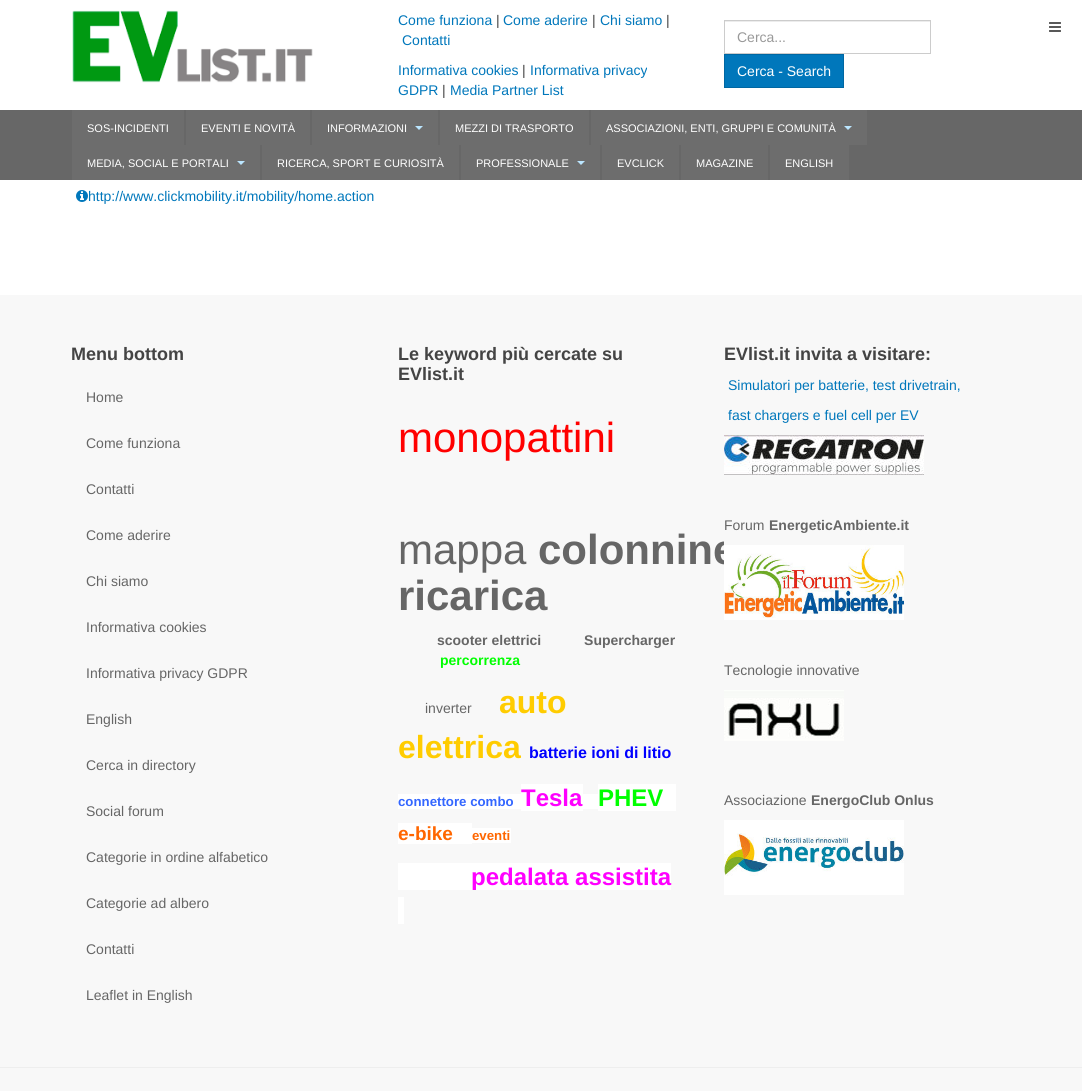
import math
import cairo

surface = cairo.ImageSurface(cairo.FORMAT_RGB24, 1082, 1091)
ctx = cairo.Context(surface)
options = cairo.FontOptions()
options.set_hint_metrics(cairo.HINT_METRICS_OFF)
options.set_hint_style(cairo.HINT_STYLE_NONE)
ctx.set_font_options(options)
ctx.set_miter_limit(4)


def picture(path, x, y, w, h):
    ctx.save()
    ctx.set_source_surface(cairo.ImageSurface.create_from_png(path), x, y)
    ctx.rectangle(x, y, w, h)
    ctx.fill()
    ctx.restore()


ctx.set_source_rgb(1, 1, 1)
ctx.paint()
picture("img1.png", 72, 10, 241, 73)
ctx.select_font_face("Liberation Sans")
ctx.set_font_size(14)
ctx.set_source_rgb(0, 0.467, 0.733)
ctx.move_to(398, 25)
ctx.show_text("Come funziona")
ctx.set_source_rgb(0.267, 0.267, 0.267)
ctx.move_to(496, 25)
ctx.show_text("|")
ctx.set_source_rgb(0, 0.467, 0.733)
ctx.move_to(503, 25)
ctx.show_text("Come aderire")
ctx.set_source_rgb(0.267, 0.267, 0.267)
ctx.move_to(592, 25)
ctx.show_text("|")
ctx.set_source_rgb(0, 0.467, 0.733)
ctx.move_to(600, 25)
ctx.show_text("Chi siamo")
ctx.set_source_rgb(0.267, 0.267, 0.267)
ctx.move_to(666, 25)
ctx.show_text("|")
ctx.set_source_rgb(0, 0.467, 0.733)
ctx.move_to(402, 45)
ctx.show_text("Contatti")
ctx.move_to(398, 75)
ctx.show_text("Informativa cookies")
ctx.set_source_rgb(0.267, 0.267, 0.267)
ctx.move_to(522, 75)
ctx.show_text("|")
ctx.set_source_rgb(0, 0.467, 0.733)
ctx.move_to(530, 75)
ctx.show_text("Informativa privacy")
ctx.move_to(398, 95)
ctx.show_text("GDPR")
ctx.set_source_rgb(0.267, 0.267, 0.267)
ctx.move_to(442, 95)
ctx.show_text("|")
ctx.set_source_rgb(0, 0.467, 0.733)
ctx.move_to(450, 95)
ctx.show_text("Media Partner List")
ctx.set_source_rgb(0.925, 0.925, 0.925)
ctx.rectangle(725, 21, 205, 1)
ctx.fill()
ctx.rectangle(724.5, 20.5, 206, 33)
ctx.set_source_rgb(0.8, 0.8, 0.8)
ctx.set_line_width(1)
ctx.stroke()
ctx.set_source_rgb(0.6, 0.6, 0.6)
ctx.move_to(737, 42)
ctx.show_text("Cerca...")
ctx.set_source_rgb(0, 0.467, 0.733)
ctx.rectangle(724.5, 54.5, 119, 33)
ctx.fill_preserve()
ctx.set_source_rgb(0, 0.404, 0.635)
ctx.stroke()
ctx.set_source_rgb(1, 1, 1)
ctx.move_to(737, 76)
ctx.show_text("Cerca - Search")
picture("img2.png", 1049, 22, 12, 10)
ctx.set_source_rgb(0.404, 0.404, 0.404)
ctx.rectangle(0, 110, 1082, 70)
ctx.fill()
ctx.set_source_rgb(0.427, 0.427, 0.427)
ctx.rectangle(72, 110, 112, 35)
ctx.fill()
ctx.set_font_size(11)
ctx.set_source_rgb(1, 1, 1)
ctx.move_to(87, 132)
ctx.show_text("SOS-INCIDENTI")
ctx.set_source_rgb(0.427, 0.427, 0.427)
ctx.rectangle(186, 110, 124, 35)
ctx.fill()
ctx.set_source_rgb(1, 1, 1)
ctx.move_to(201, 132)
ctx.show_text("EVENTI E NOVITÀ")
ctx.set_source_rgb(0.427, 0.427, 0.427)
ctx.rectangle(312, 110, 126, 35)
ctx.fill()
ctx.set_source_rgb(1, 1, 1)
ctx.move_to(327, 132)
ctx.show_text("INFORMAZIONI")
ctx.set_source_rgb(0.733, 0.902, 1)
ctx.new_path()
ctx.move_to(415, 126)
ctx.line_to(423, 126)
ctx.line_to(419, 130)
ctx.close_path()
ctx.fill()
ctx.set_source_rgb(0.427, 0.427, 0.427)
ctx.rectangle(440, 110, 149, 35)
ctx.fill()
ctx.set_source_rgb(1, 1, 1)
ctx.move_to(455, 132)
ctx.show_text("MEZZI DI TRASPORTO")
ctx.set_source_rgb(0.427, 0.427, 0.427)
ctx.rectangle(591, 110, 276, 35)
ctx.fill()
ctx.set_source_rgb(1, 1, 1)
ctx.move_to(606, 132)
ctx.show_text("ASSOCIAZIONI, ENTI, GRUPPI E COMUNITÀ")
ctx.set_source_rgb(0.733, 0.902, 1)
ctx.new_path()
ctx.move_to(844, 126)
ctx.line_to(852, 126)
ctx.line_to(848, 130)
ctx.close_path()
ctx.fill()
ctx.set_source_rgb(0.427, 0.427, 0.427)
ctx.rectangle(72, 145, 188, 35)
ctx.fill()
ctx.set_source_rgb(1, 1, 1)
ctx.move_to(87, 167)
ctx.show_text("MEDIA, SOCIAL E PORTALI")
ctx.set_source_rgb(0.733, 0.902, 1)
ctx.new_path()
ctx.move_to(237, 161)
ctx.line_to(245, 161)
ctx.line_to(241, 165)
ctx.close_path()
ctx.fill()
ctx.set_source_rgb(0.427, 0.427, 0.427)
ctx.rectangle(262, 145, 197, 35)
ctx.fill()
ctx.set_source_rgb(1, 1, 1)
ctx.move_to(277, 167)
ctx.show_text("RICERCA, SPORT E CURIOSITÀ")
ctx.set_source_rgb(0.427, 0.427, 0.427)
ctx.rectangle(461, 145, 139, 35)
ctx.fill()
ctx.set_source_rgb(1, 1, 1)
ctx.move_to(476, 167)
ctx.show_text("PROFESSIONALE")
ctx.set_source_rgb(0.733, 0.902, 1)
ctx.new_path()
ctx.move_to(577, 161)
ctx.line_to(585, 161)
ctx.line_to(581, 165)
ctx.close_path()
ctx.fill()
ctx.set_source_rgb(0.427, 0.427, 0.427)
ctx.rectangle(602, 145, 77, 35)
ctx.fill()
ctx.set_source_rgb(1, 1, 1)
ctx.move_to(617, 167)
ctx.show_text("EVCLICK")
ctx.set_source_rgb(0.427, 0.427, 0.427)
ctx.rectangle(681, 145, 87, 35)
ctx.fill()
ctx.set_source_rgb(1, 1, 1)
ctx.move_to(696, 167)
ctx.show_text("MAGAZINE")
ctx.set_source_rgb(0.427, 0.427, 0.427)
ctx.rectangle(770, 145, 79, 35)
ctx.fill()
ctx.set_source_rgb(1, 1, 1)
ctx.move_to(785, 167)
ctx.show_text("ENGLISH")
picture("img3.png", 76, 190, 12, 12)
ctx.set_font_size(14)
ctx.set_source_rgb(0, 0.467, 0.733)
ctx.move_to(88, 201)
ctx.show_text("http://www.clickmobility.it/mobility/home.action")
ctx.set_source_rgb(0.969, 0.969, 0.969)
ctx.rectangle(0, 295, 1082, 796)
ctx.fill()
ctx.select_font_face("Liberation Sans", cairo.FONT_SLANT_NORMAL, cairo.FONT_WEIGHT_BOLD)
ctx.set_font_size(18)
ctx.set_source_rgb(0.267, 0.267, 0.267)
ctx.move_to(71, 360)
ctx.show_text("Menu bottom")
ctx.select_font_face("Liberation Sans")
ctx.set_font_size(14)
ctx.set_source_rgb(0.4, 0.4, 0.4)
ctx.move_to(86, 402)
ctx.show_text("Home")
ctx.move_to(86, 448)
ctx.show_text("Come funziona")
ctx.move_to(86, 494)
ctx.show_text("Contatti")
ctx.move_to(86, 540)
ctx.show_text("Come aderire")
ctx.move_to(86, 586)
ctx.show_text("Chi siamo")
ctx.move_to(86, 632)
ctx.show_text("Informativa cookies")
ctx.move_to(86, 678)
ctx.show_text("Informativa privacy GDPR")
ctx.move_to(86, 724)
ctx.show_text("English")
ctx.move_to(86, 770)
ctx.show_text("Cerca in directory")
ctx.move_to(86, 816)
ctx.show_text("Social forum")
ctx.move_to(86, 862)
ctx.show_text("Categorie in ordine alfabetico")
ctx.move_to(86, 908)
ctx.show_text("Categorie ad albero")
ctx.move_to(86, 954)
ctx.show_text("Contatti")
ctx.move_to(86, 1000)
ctx.show_text("Leaflet in English")
ctx.select_font_face("Liberation Sans", cairo.FONT_SLANT_NORMAL, cairo.FONT_WEIGHT_BOLD)
ctx.set_font_size(18)
ctx.set_source_rgb(0.267, 0.267, 0.267)
ctx.move_to(398, 360)
ctx.show_text("Le keyword più cercate su")
ctx.move_to(398, 380)
ctx.show_text("EVlist.it")
ctx.select_font_face("Liberation Sans")
ctx.set_font_size(42)
ctx.set_source_rgb(1, 0, 0)
ctx.move_to(398, 452)
ctx.show_text("monopattini")
ctx.set_source_rgb(0.4, 0.4, 0.4)
ctx.move_to(398, 564)
ctx.show_text("mappa")
ctx.select_font_face("Liberation Sans", cairo.FONT_SLANT_NORMAL, cairo.FONT_WEIGHT_BOLD)
ctx.move_to(538, 564)
ctx.show_text("colonnine")
ctx.move_to(398, 610)
ctx.show_text("ricarica")
ctx.set_font_size(14)
ctx.move_to(437, 645)
ctx.show_text("scooter elettrici           Supercharger")
ctx.set_source_rgb(0, 1, 0)
ctx.move_to(440, 665)
ctx.show_text("percorrenza")
ctx.select_font_face("Liberation Sans")
ctx.set_source_rgb(0.4, 0.4, 0.4)
ctx.move_to(425, 713)
ctx.show_text("inverter")
ctx.select_font_face("Liberation Sans", cairo.FONT_SLANT_NORMAL, cairo.FONT_WEIGHT_BOLD)
ctx.set_font_size(32)
ctx.set_source_rgb(1, 0.8, 0)
ctx.move_to(499, 713)
ctx.show_text("auto")
ctx.move_to(398, 758)
ctx.show_text("elettrica")
ctx.set_font_size(16)
ctx.set_source_rgb(0, 0, 1)
ctx.move_to(529, 758)
ctx.show_text("batterie ioni di litio")
ctx.set_source_rgb(1, 1, 1)
ctx.rectangle(398, 794, 123, 15)
ctx.fill()
ctx.set_font_size(13.25)
ctx.set_source_rgb(0.2, 0.4, 1)
ctx.move_to(398, 806)
ctx.show_text("connettore combo")
ctx.set_source_rgb(1, 1, 1)
ctx.rectangle(521, 784, 62, 27)
ctx.fill()
ctx.set_font_size(24)
ctx.set_source_rgb(1, 0, 1)
ctx.move_to(521, 806)
ctx.show_text("Tesla")
ctx.set_source_rgb(1, 1, 1)
ctx.rectangle(583, 794, 15, 15)
ctx.fill()
ctx.rectangle(598, 784, 78, 27)
ctx.fill()
ctx.set_source_rgb(0, 1, 0)
ctx.move_to(598, 806)
ctx.show_text("PHEV")
ctx.set_source_rgb(1, 1, 1)
ctx.rectangle(398, 823, 74, 21)
ctx.fill()
ctx.set_font_size(19)
ctx.set_source_rgb(1, 0.4, 0)
ctx.move_to(398, 840)
ctx.show_text("e-bike")
ctx.set_source_rgb(1, 1, 1)
ctx.rectangle(472, 828, 39, 15)
ctx.fill()
ctx.set_font_size(13.25)
ctx.set_source_rgb(1, 0.4, 0)
ctx.move_to(472, 840)
ctx.show_text("eventi")
ctx.set_source_rgb(1, 1, 1)
ctx.rectangle(398, 863, 273, 27)
ctx.fill()
ctx.set_font_size(24)
ctx.set_source_rgb(1, 0, 1)
ctx.move_to(471, 885)
ctx.show_text("pedalata assistita")
ctx.set_source_rgb(1, 1, 1)
ctx.rectangle(398, 897, 6, 27)
ctx.fill()
ctx.set_source_rgb(0.969, 0.969, 0.969)
ctx.rectangle(724, 541, 11, 24)
ctx.fill()
ctx.set_font_size(18)
ctx.set_source_rgb(0.267, 0.267, 0.267)
ctx.move_to(724, 360)
ctx.show_text("EVlist.it invita a visitare:")
ctx.select_font_face("Liberation Sans")
ctx.set_font_size(14)
ctx.set_source_rgb(0, 0.467, 0.733)
ctx.move_to(728, 390)
ctx.show_text("Simulatori per batterie, test drivetrain,")
ctx.move_to(728, 420)
ctx.show_text("fast chargers e fuel cell per EV")
picture("img4.png", 724, 435, 200, 40)
ctx.set_source_rgb(0.4, 0.4, 0.4)
ctx.move_to(724, 530)
ctx.show_text("Forum")
ctx.select_font_face("Liberation Sans", cairo.FONT_SLANT_NORMAL, cairo.FONT_WEIGHT_BOLD)
ctx.move_to(769, 530)
ctx.show_text("EnergeticAmbiente.it")
picture("img5.png", 724, 545, 180, 75)
ctx.select_font_face("Liberation Sans")
ctx.move_to(724, 675)
ctx.show_text("Tecnologie innovative")
picture("img6.png", 724, 690, 120, 51)
ctx.move_to(724, 805)
ctx.show_text("Associazione")
ctx.select_font_face("Liberation Sans", cairo.FONT_SLANT_NORMAL, cairo.FONT_WEIGHT_BOLD)
ctx.move_to(811, 805)
ctx.show_text("EnergoClub Onlus")
picture("img7.png", 724, 820, 180, 75)
ctx.set_source_rgb(0.933, 0.933, 0.933)
ctx.rectangle(0, 1067, 1082, 1)
ctx.fill()
surface.write_to_png("page.png")
